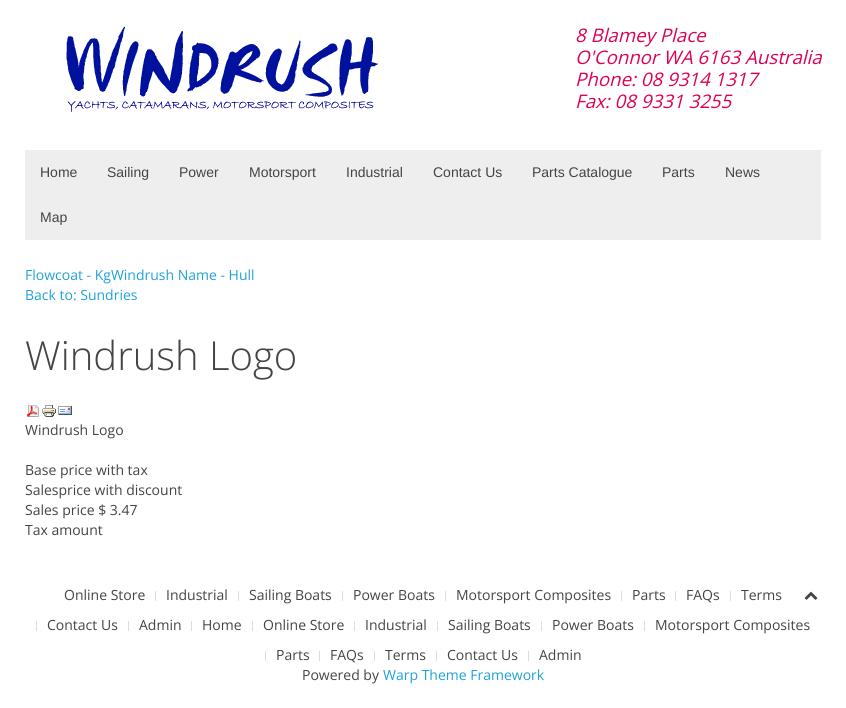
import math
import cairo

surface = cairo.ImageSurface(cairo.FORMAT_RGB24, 846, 708)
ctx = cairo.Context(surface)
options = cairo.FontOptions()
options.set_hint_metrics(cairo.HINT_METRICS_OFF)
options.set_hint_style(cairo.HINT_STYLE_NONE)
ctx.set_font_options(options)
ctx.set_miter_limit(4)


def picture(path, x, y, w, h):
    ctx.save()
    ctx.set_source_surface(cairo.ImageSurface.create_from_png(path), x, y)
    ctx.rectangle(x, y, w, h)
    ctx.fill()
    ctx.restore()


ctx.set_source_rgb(1, 1, 1)
ctx.paint()
picture("img1.png", 66, 26, 312, 86)
ctx.select_font_face("Open Sans", cairo.FONT_SLANT_ITALIC)
ctx.set_font_size(18.7)
ctx.set_source_rgb(0.867, 0, 0.333)
ctx.move_to(575, 42)
ctx.show_text("8 Blamey Place")
ctx.move_to(575, 64)
ctx.show_text("O'Connor WA 6163 Australia")
ctx.move_to(575, 86)
ctx.show_text("Phone: 08 9314 1317")
ctx.move_to(575, 108)
ctx.show_text("Fax: 08 9331 3255")
ctx.set_source_rgb(0.933, 0.933, 0.933)
ctx.rectangle(25, 150, 796, 90)
ctx.fill()
ctx.select_font_face("Liberation Sans")
ctx.set_font_size(14)
ctx.set_source_rgb(0.267, 0.267, 0.267)
ctx.move_to(40, 177)
ctx.show_text("Home")
ctx.move_to(107, 177)
ctx.show_text("Sailing")
ctx.move_to(179, 177)
ctx.show_text("Power")
ctx.move_to(249, 177)
ctx.show_text("Motorsport")
ctx.move_to(346, 177)
ctx.show_text("Industrial")
ctx.move_to(433, 177)
ctx.show_text("Contact Us")
ctx.move_to(532, 177)
ctx.show_text("Parts Catalogue")
ctx.move_to(662, 177)
ctx.show_text("Parts")
ctx.move_to(725, 177)
ctx.show_text("News")
ctx.move_to(40, 222)
ctx.show_text("Map")
ctx.select_font_face("Open Sans")
ctx.set_source_rgb(0.122, 0.635, 0.839)
ctx.move_to(25, 280)
ctx.show_text("Flowcoat - KgWindrush Name - Hull")
ctx.move_to(25, 300)
ctx.show_text("Back to: Sundries")
ctx.select_font_face("Open Sans Light")
ctx.set_font_size(40)
ctx.set_source_rgb(0.267, 0.267, 0.267)
ctx.move_to(25, 370)
ctx.show_text("Windrush Logo")
picture("img2.png", 27, 405, 12, 12)
picture("img3.png", 42, 405, 14, 12)
picture("img4.png", 58, 406, 14, 9)
ctx.select_font_face("Open Sans")
ctx.set_font_size(14)
ctx.move_to(25, 435)
ctx.show_text("Windrush Logo")
ctx.move_to(25, 475)
ctx.show_text("Base price with tax")
ctx.move_to(25, 495)
ctx.show_text("Salesprice with discount")
ctx.move_to(25, 515)
ctx.show_text("Sales price $ 3.47")
ctx.move_to(25, 535)
ctx.show_text("Tax amount")
ctx.move_to(64, 600)
ctx.show_text("Online Store")
ctx.set_source_rgb(0.867, 0.867, 0.867)
ctx.rectangle(155, 591, 1, 10)
ctx.fill()
ctx.set_source_rgb(0.267, 0.267, 0.267)
ctx.move_to(166, 600)
ctx.show_text("Industrial")
ctx.set_source_rgb(0.867, 0.867, 0.867)
ctx.rectangle(238, 591, 1, 10)
ctx.fill()
ctx.set_source_rgb(0.267, 0.267, 0.267)
ctx.move_to(249, 600)
ctx.show_text("Sailing Boats")
ctx.set_source_rgb(0.867, 0.867, 0.867)
ctx.rectangle(342, 591, 1, 10)
ctx.fill()
ctx.set_source_rgb(0.267, 0.267, 0.267)
ctx.move_to(353, 600)
ctx.show_text("Power Boats")
ctx.set_source_rgb(0.867, 0.867, 0.867)
ctx.rectangle(445, 591, 1, 10)
ctx.fill()
ctx.set_source_rgb(0.267, 0.267, 0.267)
ctx.move_to(456, 600)
ctx.show_text("Motorsport Composites")
ctx.set_source_rgb(0.867, 0.867, 0.867)
ctx.rectangle(621, 591, 1, 10)
ctx.fill()
ctx.set_source_rgb(0.267, 0.267, 0.267)
ctx.move_to(632, 600)
ctx.show_text("Parts")
ctx.set_source_rgb(0.867, 0.867, 0.867)
ctx.rectangle(675, 591, 1, 10)
ctx.fill()
ctx.set_source_rgb(0.267, 0.267, 0.267)
ctx.move_to(686, 600)
ctx.show_text("FAQs")
ctx.set_source_rgb(0.867, 0.867, 0.867)
ctx.rectangle(730, 591, 1, 10)
ctx.fill()
ctx.set_source_rgb(0.267, 0.267, 0.267)
ctx.move_to(741, 600)
ctx.show_text("Terms")
ctx.set_source_rgb(0.867, 0.867, 0.867)
ctx.rectangle(36, 621, 1, 10)
ctx.fill()
ctx.set_source_rgb(0.267, 0.267, 0.267)
ctx.move_to(47, 630)
ctx.show_text("Contact Us")
ctx.set_source_rgb(0.867, 0.867, 0.867)
ctx.rectangle(128, 621, 1, 10)
ctx.fill()
ctx.set_source_rgb(0.267, 0.267, 0.267)
ctx.move_to(139, 630)
ctx.show_text("Admin")
ctx.set_source_rgb(0.867, 0.867, 0.867)
ctx.rectangle(191, 621, 1, 10)
ctx.fill()
ctx.set_source_rgb(0.267, 0.267, 0.267)
ctx.move_to(202, 630)
ctx.show_text("Home")
ctx.set_source_rgb(0.867, 0.867, 0.867)
ctx.rectangle(252, 621, 1, 10)
ctx.fill()
ctx.set_source_rgb(0.267, 0.267, 0.267)
ctx.move_to(263, 630)
ctx.show_text("Online Store")
ctx.set_source_rgb(0.867, 0.867, 0.867)
ctx.rectangle(354, 621, 1, 10)
ctx.fill()
ctx.set_source_rgb(0.267, 0.267, 0.267)
ctx.move_to(365, 630)
ctx.show_text("Industrial")
ctx.set_source_rgb(0.867, 0.867, 0.867)
ctx.rectangle(437, 621, 1, 10)
ctx.fill()
ctx.set_source_rgb(0.267, 0.267, 0.267)
ctx.move_to(448, 630)
ctx.show_text("Sailing Boats")
ctx.set_source_rgb(0.867, 0.867, 0.867)
ctx.rectangle(541, 621, 1, 10)
ctx.fill()
ctx.set_source_rgb(0.267, 0.267, 0.267)
ctx.move_to(552, 630)
ctx.show_text("Power Boats")
ctx.set_source_rgb(0.867, 0.867, 0.867)
ctx.rectangle(644, 621, 1, 10)
ctx.fill()
ctx.set_source_rgb(0.267, 0.267, 0.267)
ctx.move_to(655, 630)
ctx.show_text("Motorsport Composites")
ctx.set_source_rgb(0.867, 0.867, 0.867)
ctx.rectangle(265, 651, 1, 10)
ctx.fill()
ctx.set_source_rgb(0.267, 0.267, 0.267)
ctx.move_to(276, 660)
ctx.show_text("Parts")
ctx.set_source_rgb(0.867, 0.867, 0.867)
ctx.rectangle(319, 651, 1, 10)
ctx.fill()
ctx.set_source_rgb(0.267, 0.267, 0.267)
ctx.move_to(330, 660)
ctx.show_text("FAQs")
ctx.set_source_rgb(0.867, 0.867, 0.867)
ctx.rectangle(374, 651, 1, 10)
ctx.fill()
ctx.set_source_rgb(0.267, 0.267, 0.267)
ctx.move_to(385, 660)
ctx.show_text("Terms")
ctx.set_source_rgb(0.867, 0.867, 0.867)
ctx.rectangle(436, 651, 1, 10)
ctx.fill()
ctx.set_source_rgb(0.267, 0.267, 0.267)
ctx.move_to(447, 660)
ctx.show_text("Contact Us")
ctx.set_source_rgb(0.867, 0.867, 0.867)
ctx.rectangle(528, 651, 1, 10)
ctx.fill()
ctx.set_source_rgb(0.267, 0.267, 0.267)
ctx.move_to(539, 660)
ctx.show_text("Admin")
picture("img5.png", 804, 591, 14, 9)
ctx.move_to(302, 680)
ctx.show_text("Powered by")
ctx.set_source_rgb(0.122, 0.635, 0.839)
ctx.move_to(383, 680)
ctx.show_text("Warp Theme Framework")
surface.write_to_png("page.png")
